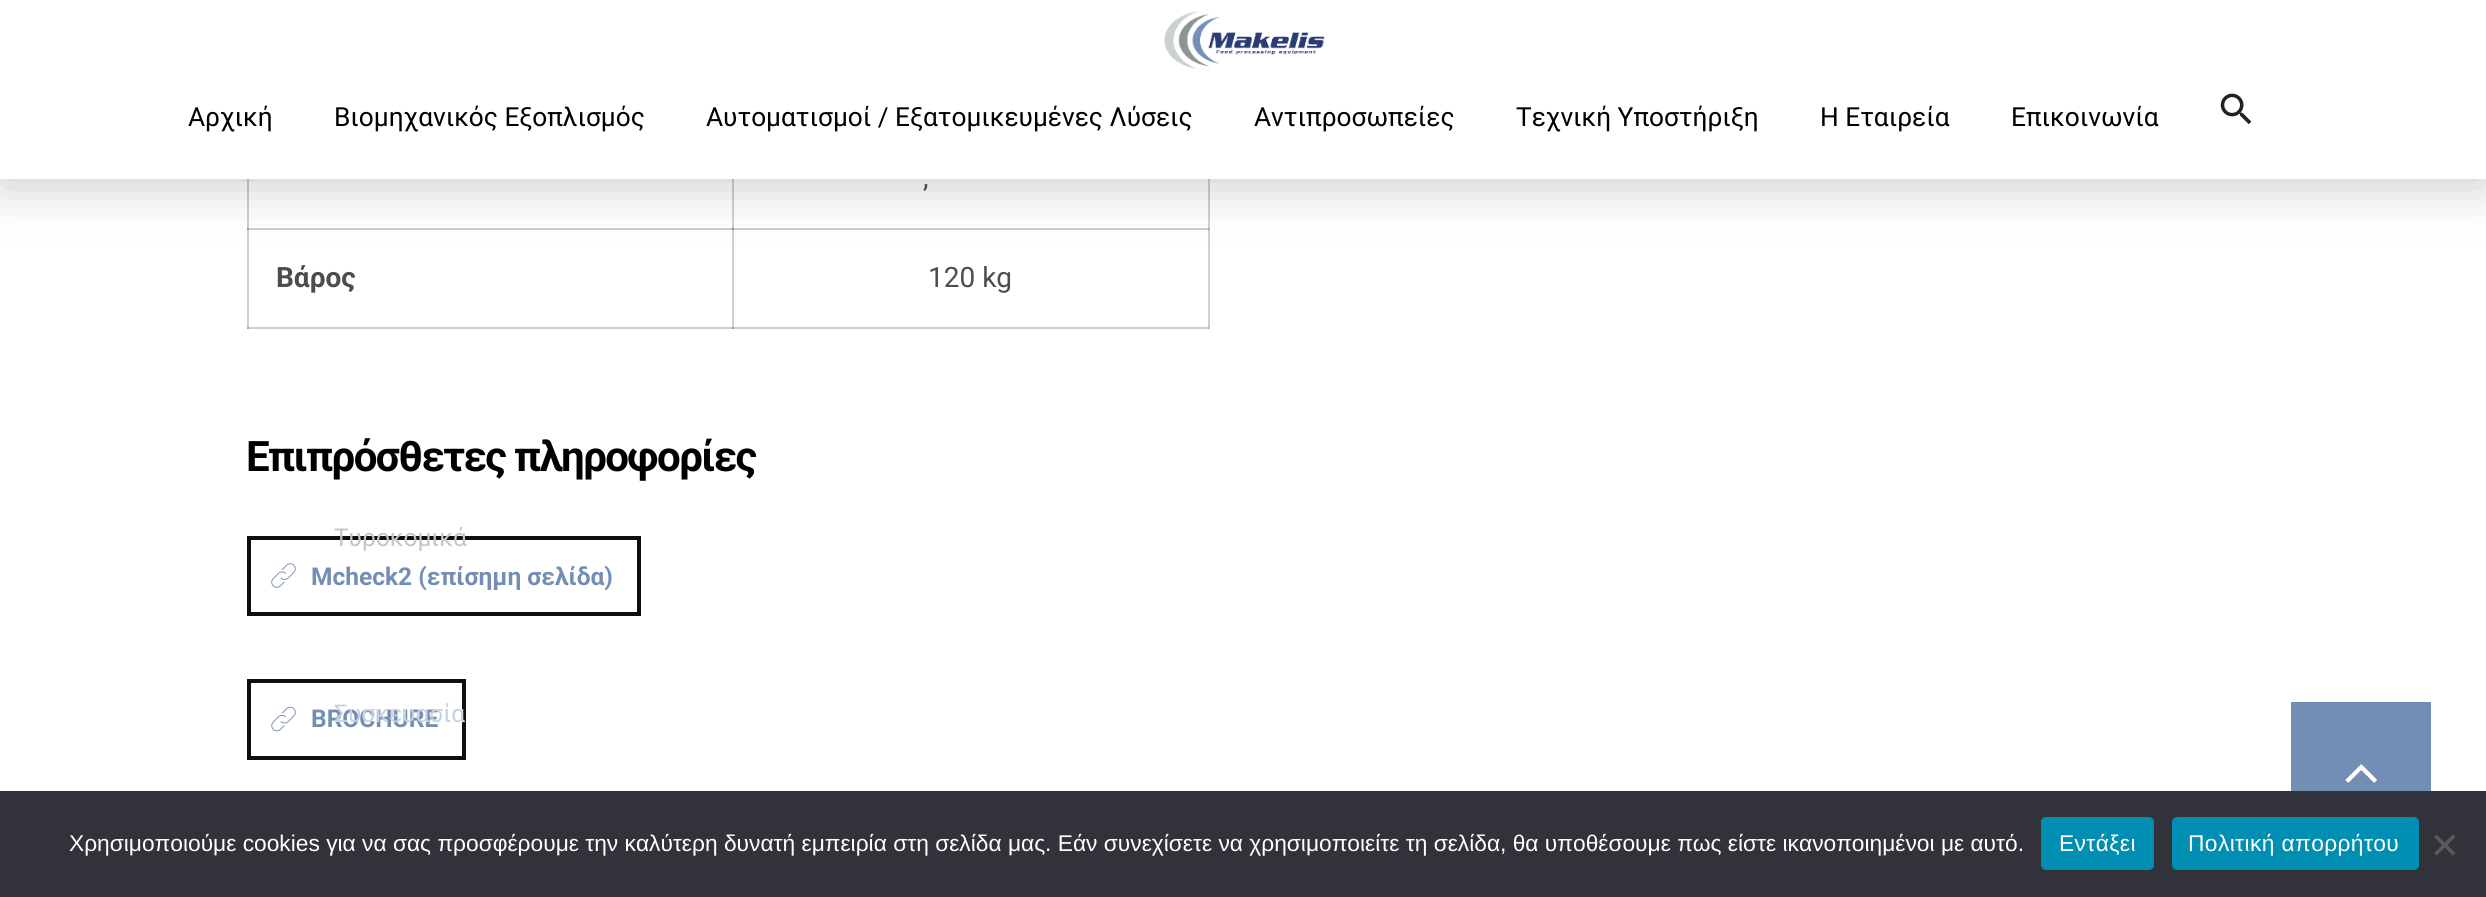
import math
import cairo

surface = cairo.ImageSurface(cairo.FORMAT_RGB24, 2486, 897)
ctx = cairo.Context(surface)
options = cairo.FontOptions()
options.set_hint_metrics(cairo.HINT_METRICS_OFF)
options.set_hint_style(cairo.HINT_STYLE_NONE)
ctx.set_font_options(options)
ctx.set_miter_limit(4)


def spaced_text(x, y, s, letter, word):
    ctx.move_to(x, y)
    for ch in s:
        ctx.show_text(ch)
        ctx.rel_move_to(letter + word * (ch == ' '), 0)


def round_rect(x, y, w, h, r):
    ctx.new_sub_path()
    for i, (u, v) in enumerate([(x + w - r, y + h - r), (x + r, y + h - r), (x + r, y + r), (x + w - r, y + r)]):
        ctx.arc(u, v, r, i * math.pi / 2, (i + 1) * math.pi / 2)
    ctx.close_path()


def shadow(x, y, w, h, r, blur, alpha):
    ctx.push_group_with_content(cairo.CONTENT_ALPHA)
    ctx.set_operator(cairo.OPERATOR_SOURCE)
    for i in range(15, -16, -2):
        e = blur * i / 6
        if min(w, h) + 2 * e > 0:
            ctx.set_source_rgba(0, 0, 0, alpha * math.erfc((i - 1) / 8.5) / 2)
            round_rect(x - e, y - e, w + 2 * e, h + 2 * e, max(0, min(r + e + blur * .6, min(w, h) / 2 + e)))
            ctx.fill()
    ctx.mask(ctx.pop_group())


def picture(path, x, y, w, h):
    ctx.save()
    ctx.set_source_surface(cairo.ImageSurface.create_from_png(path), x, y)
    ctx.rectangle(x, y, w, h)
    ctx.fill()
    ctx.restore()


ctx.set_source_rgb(1, 1, 1)
ctx.paint()
ctx.set_source_rgb(0.812, 0.812, 0.812)
ctx.rectangle(732, 179, 2, 50)
ctx.fill()
ctx.rectangle(247, 228, 486, 2)
ctx.fill()
ctx.rectangle(732, 228, 2, 101)
ctx.fill()
ctx.rectangle(732, 228, 477, 2)
ctx.fill()
ctx.set_source_rgb(0.655, 0.655, 0.655)
ctx.rectangle(732, 229, 2, 1)
ctx.fill()
ctx.set_source_rgb(0.529, 0.529, 0.529)
ctx.rectangle(732, 228, 2, 1)
ctx.fill()
ctx.rectangle(732, 228, 1, 2)
ctx.fill()
ctx.set_source_rgb(0.431, 0.431, 0.431)
ctx.rectangle(732, 228, 1, 1)
ctx.fill()
ctx.set_source_rgb(0.812, 0.812, 0.812)
ctx.rectangle(247, 179, 2, 150)
ctx.fill()
ctx.set_source_rgb(0.655, 0.655, 0.655)
ctx.rectangle(247, 229, 2, 1)
ctx.fill()
ctx.set_source_rgb(0.588, 0.588, 0.588)
ctx.rectangle(247, 228, 2, 1)
ctx.fill()
ctx.set_source_rgb(0.812, 0.812, 0.812)
ctx.rectangle(247, 327, 962, 2)
ctx.fill()
ctx.set_source_rgb(0.655, 0.655, 0.655)
ctx.rectangle(732, 327, 2, 2)
ctx.fill()
ctx.set_source_rgb(0.588, 0.588, 0.588)
ctx.rectangle(732, 327, 1, 2)
ctx.fill()
ctx.set_source_rgb(0.655, 0.655, 0.655)
ctx.rectangle(247, 327, 2, 2)
ctx.fill()
ctx.set_source_rgb(0.812, 0.812, 0.812)
ctx.rectangle(1208, 179, 2, 150)
ctx.fill()
ctx.set_source_rgb(0.729, 0.729, 0.729)
ctx.rectangle(1208, 228, 2, 1)
ctx.fill()
ctx.set_source_rgb(0.655, 0.655, 0.655)
ctx.rectangle(1208, 228, 1, 2)
ctx.fill()
ctx.set_source_rgb(0.588, 0.588, 0.588)
ctx.rectangle(1208, 228, 1, 1)
ctx.fill()
ctx.set_source_rgb(0, 0, 0)
shadow(0, 9, 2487, 178, 0, 26, 0.2)
ctx.set_source_rgb(1, 1, 1)
ctx.rectangle(0, 0, 2486, 179)
ctx.fill()
picture("img1.png", 1164, 11, 161, 58)
ctx.select_font_face("Roboto")
ctx.set_font_size(26.25)
ctx.set_source_rgb(0, 0, 0)
ctx.move_to(188, 126)
ctx.show_text("Αρχική")
ctx.move_to(334, 126)
ctx.show_text("Βιομηχανικός Εξοπλισμός")
ctx.rectangle(249, 538, 390, 76)
ctx.set_source_rgb(0.059, 0.059, 0.059)
ctx.set_line_width(4)
ctx.stroke()
ctx.set_font_size(24.5)
ctx.set_source_rgb(0.773, 0.773, 0.773)
ctx.move_to(334, 546)
ctx.show_text("Τυροκομικά")
ctx.rectangle(249, 681, 215, 77)
ctx.set_source_rgb(0.059, 0.059, 0.059)
ctx.stroke()
ctx.select_font_face("Roboto", cairo.FONT_SLANT_NORMAL, cairo.FONT_WEIGHT_BOLD)
ctx.set_source_rgb(0.451, 0.557, 0.71)
ctx.move_to(311, 727)
ctx.show_text("BROCHURE")
ctx.select_font_face("Roboto")
ctx.set_source_rgb(0.784, 0.82, 0.871)
ctx.move_to(334, 722)
ctx.show_text("Συσκευασία")
ctx.set_font_size(26.25)
ctx.set_source_rgb(0, 0, 0)
ctx.move_to(706, 126)
ctx.show_text("Αυτοματισμοί / Εξατομικευμένες Λύσεις")
ctx.move_to(1254, 126)
ctx.show_text("Αντιπροσωπείες")
ctx.move_to(1516, 126)
ctx.show_text("Τεχνική Υποστήριξη")
ctx.move_to(1820, 126)
ctx.show_text("Η Εταιρεία")
ctx.move_to(2011, 126)
ctx.show_text("Επικοινωνία")
picture("img2.png", 2220, 93, 32, 32)
ctx.set_source_rgb(0.655, 0.655, 0.655)
ctx.rectangle(1208, 327, 1, 2)
ctx.fill()
ctx.set_font_size(28)
ctx.set_source_rgb(0.302, 0.302, 0.302)
ctx.move_to(923, 187)
ctx.show_text(",")
ctx.select_font_face("Roboto", cairo.FONT_SLANT_NORMAL, cairo.FONT_WEIGHT_BOLD)
ctx.move_to(276, 287)
ctx.show_text("Βάρος")
ctx.select_font_face("Roboto")
ctx.move_to(928, 287)
ctx.show_text("120 kg")
ctx.select_font_face("Roboto", cairo.FONT_SLANT_NORMAL, cairo.FONT_WEIGHT_BOLD)
ctx.set_font_size(42)
ctx.set_source_rgb(0, 0, 0)
spaced_text(246, 471, "Επιπρόσθετες πληροφορίες", -1.6, 0)
picture("img3.png", 271, 563, 25, 25)
ctx.set_font_size(24.5)
ctx.set_source_rgb(0.451, 0.557, 0.71)
ctx.move_to(311, 585)
ctx.show_text("Mcheck2 (επίσημη σελίδα)")
picture("img4.png", 271, 706, 25, 26)
ctx.rectangle(2291, 702, 140, 89)
ctx.fill()
picture("img5.png", 2345, 764, 32, 19)
ctx.set_source_rgb(0.196, 0.196, 0.227)
ctx.rectangle(0, 791, 2486, 106)
ctx.fill()
ctx.select_font_face("Liberation Sans")
ctx.set_font_size(22.75)
ctx.set_source_rgb(1, 1, 1)
ctx.move_to(69, 851)
ctx.show_text("Χρησιμοποιούμε cookies για να σας προσφέρουμε την καλύτερη δυνατή εμπειρία στη σελίδα μας. Εάν συνεχίσετε να χρησιμοποιείτε τη σελίδα, θα υποθέσουμε πως είστε ικανοποιημένοι με αυτό.")
ctx.set_source_rgb(0, 0.557, 0.698)
round_rect(2041, 817, 113, 53, 5)
ctx.fill()
ctx.set_source_rgb(1, 1, 1)
spaced_text(2059, 851, "Εντάξει", 0.4, 0)
ctx.set_source_rgb(0, 0.557, 0.698)
round_rect(2172, 817, 247, 53, 5)
ctx.fill()
ctx.set_source_rgb(1, 1, 1)
spaced_text(2188, 851, "Πολιτική απορρήτου", 0.4, 0)
ctx.set_source_rgb(0.349, 0.349, 0.365)
ctx.new_path()
ctx.move_to(2453, 834.5)
ctx.line_to(2455.5, 837)
ctx.line_to(2436.5, 855.5)
ctx.line_to(2434, 853)
ctx.close_path()
ctx.fill()
ctx.new_path()
ctx.move_to(2434, 837)
ctx.line_to(2436.5, 834.5)
ctx.line_to(2455.5, 853)
ctx.line_to(2453, 855.5)
ctx.close_path()
ctx.fill()
surface.write_to_png("page.png")
